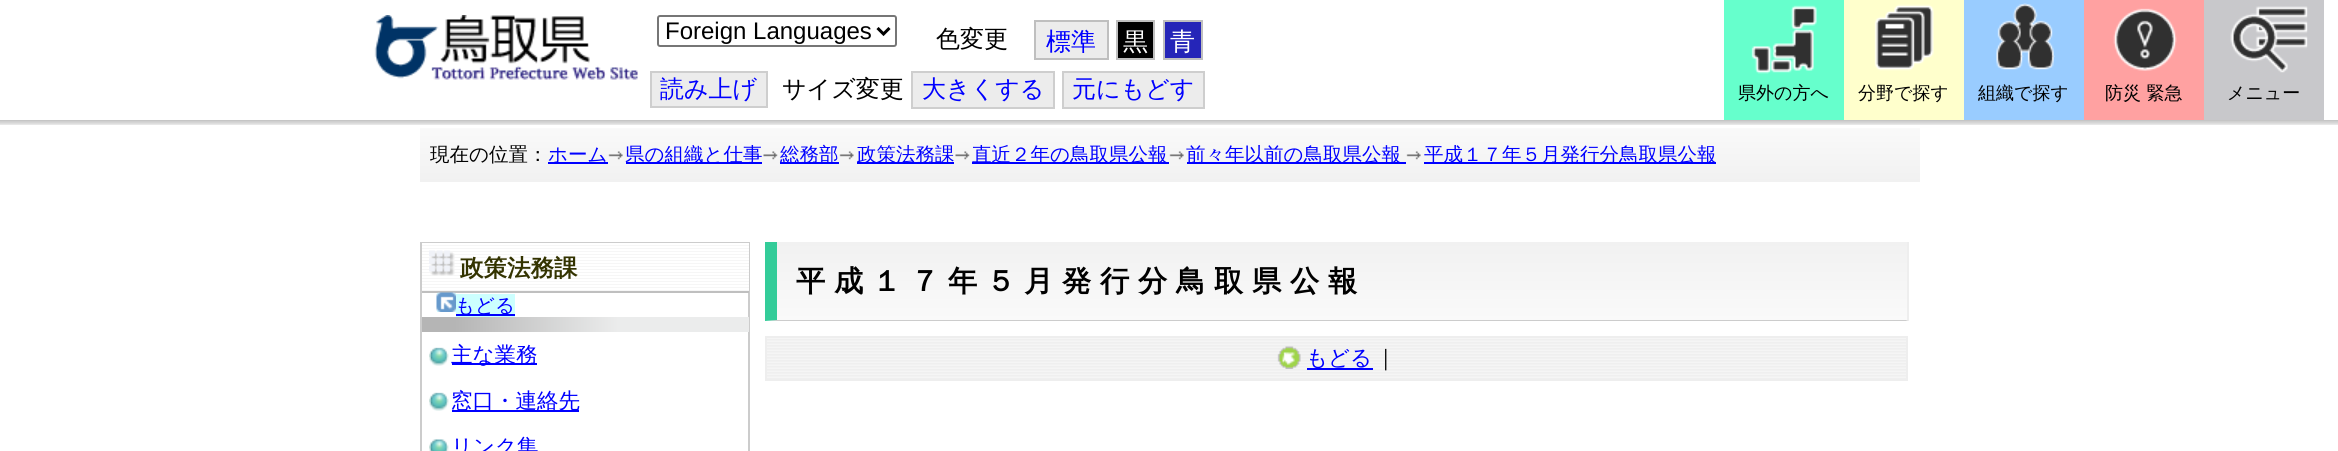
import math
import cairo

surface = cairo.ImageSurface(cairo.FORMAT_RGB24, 2338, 451)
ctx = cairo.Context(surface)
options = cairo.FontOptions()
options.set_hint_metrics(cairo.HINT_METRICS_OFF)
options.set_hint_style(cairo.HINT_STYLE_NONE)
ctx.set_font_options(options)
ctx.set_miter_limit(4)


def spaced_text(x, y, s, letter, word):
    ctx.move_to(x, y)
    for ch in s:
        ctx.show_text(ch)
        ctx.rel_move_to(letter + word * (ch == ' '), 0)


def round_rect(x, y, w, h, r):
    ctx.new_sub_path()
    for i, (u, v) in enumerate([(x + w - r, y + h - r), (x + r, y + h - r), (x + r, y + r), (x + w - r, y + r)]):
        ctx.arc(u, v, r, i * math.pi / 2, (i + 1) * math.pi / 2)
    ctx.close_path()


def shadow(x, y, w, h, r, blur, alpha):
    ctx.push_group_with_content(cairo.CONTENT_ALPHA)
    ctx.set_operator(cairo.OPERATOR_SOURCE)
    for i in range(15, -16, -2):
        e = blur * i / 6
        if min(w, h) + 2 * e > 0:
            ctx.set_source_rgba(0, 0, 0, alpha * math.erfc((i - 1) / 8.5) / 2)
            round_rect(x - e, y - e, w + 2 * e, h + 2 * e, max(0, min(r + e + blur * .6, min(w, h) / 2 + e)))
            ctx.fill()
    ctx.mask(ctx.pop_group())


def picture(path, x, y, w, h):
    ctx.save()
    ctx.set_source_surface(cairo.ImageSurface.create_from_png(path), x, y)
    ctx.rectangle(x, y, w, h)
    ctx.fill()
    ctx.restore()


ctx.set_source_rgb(1, 1, 1)
ctx.paint()
gradient = cairo.LinearGradient(1170, 127, 1170, 182)
gradient.add_color_stop_rgba(0, 0.98, 0.98, 0.98, 1)
gradient.add_color_stop_rgba(1, 0.945, 0.945, 0.945, 1)
ctx.set_source(gradient)
ctx.rectangle(420, 128, 1500, 54)
ctx.fill()
ctx.save()
ctx.rectangle(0, 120, 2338, 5)
ctx.clip()
ctx.set_source_rgb(0, 0, 0)
shadow(-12, 2, 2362, 120, 0, 4, 0.1)
shadow(-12, 2, 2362, 120, 0, 4, 0.1)
shadow(-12, 2, 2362, 120, 0, 4, 0.1)
shadow(-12, 2, 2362, 120, 0, 4, 0.1)
ctx.restore()
picture("img1.png", 374, 15, 264, 65)
round_rect(658, 16, 238, 30, 2)
ctx.set_source_rgb(0.463, 0.463, 0.463)
ctx.stroke()
ctx.new_path()
ctx.move_to(877.5, 28)
ctx.line_to(883.5, 34)
ctx.line_to(889.5, 28)
ctx.set_source_rgb(0, 0, 0)
ctx.set_line_width(3)
ctx.stroke()
ctx.select_font_face("Liberation Sans")
ctx.set_font_size(24)
ctx.move_to(665, 39)
ctx.show_text("Foreign Languages")
ctx.select_font_face("WenQuanYi Zen Hei Medium")
ctx.move_to(936, 47)
ctx.show_text("色変更")
ctx.set_source_rgb(0.925, 0.925, 0.925)
ctx.rectangle(1035, 21, 73, 38)
ctx.fill_preserve()
ctx.set_source_rgb(0.749, 0.749, 0.749)
ctx.set_line_width(2)
ctx.stroke()
ctx.set_font_size(25)
ctx.set_source_rgb(0, 0, 1)
ctx.move_to(1046, 50)
ctx.show_text("標準")
ctx.set_source_rgb(0, 0, 0)
ctx.rectangle(1117, 21, 37, 38)
ctx.fill_preserve()
ctx.set_source_rgb(0.749, 0.749, 0.749)
ctx.stroke()
ctx.set_source_rgb(1, 1, 1)
ctx.move_to(1123, 50)
ctx.show_text("黒")
ctx.set_source_rgb(0.145, 0.145, 0.722)
ctx.rectangle(1164, 21, 38, 38)
ctx.fill_preserve()
ctx.set_source_rgb(0.749, 0.749, 0.749)
ctx.stroke()
ctx.set_source_rgb(1, 1, 1)
ctx.move_to(1170, 50)
ctx.show_text("青")
ctx.set_source_rgb(0.925, 0.925, 0.925)
ctx.rectangle(651, 72, 116, 35)
ctx.fill_preserve()
ctx.set_source_rgb(0.808, 0.808, 0.808)
ctx.stroke()
ctx.set_font_size(24)
ctx.set_source_rgb(0, 0, 1)
ctx.move_to(660, 97)
ctx.show_text("読み上げ")
ctx.set_source_rgb(0, 0, 0)
ctx.move_to(782, 97)
ctx.show_text("サイズ変更")
ctx.set_source_rgb(0.925, 0.925, 0.925)
ctx.rectangle(913, 73, 140, 34)
ctx.fill()
ctx.set_source_rgb(0, 0, 1)
ctx.move_to(922, 97)
ctx.show_text("大きくする")
ctx.set_source_rgb(0.808, 0.808, 0.808)
ctx.rectangle(911, 71, 144, 2)
ctx.fill()
ctx.rectangle(911, 107, 34, 2)
ctx.fill()
ctx.rectangle(911, 71, 2, 37)
ctx.fill()
ctx.rectangle(1053, 71, 2, 37)
ctx.fill()
ctx.rectangle(945, 107, 110, 2)
ctx.fill()
ctx.set_source_rgb(0.925, 0.925, 0.925)
ctx.rectangle(1064, 73, 139, 34)
ctx.fill()
ctx.set_source_rgb(0, 0, 1)
ctx.move_to(1072, 97)
ctx.show_text("元にもどす")
ctx.set_source_rgb(0.808, 0.808, 0.808)
ctx.rectangle(1062, 71, 143, 2)
ctx.fill()
ctx.rectangle(1062, 107, 35, 2)
ctx.fill()
ctx.rectangle(1062, 71, 2, 37)
ctx.fill()
ctx.rectangle(1203, 71, 2, 37)
ctx.fill()
ctx.rectangle(1097, 107, 108, 2)
ctx.fill()
ctx.set_source_rgb(0.4, 1, 0.8)
ctx.rectangle(1724, 0, 120, 120)
ctx.fill()
picture("img2.png", 1751, 5, 66, 69)
ctx.set_font_size(18)
ctx.set_source_rgb(0, 0, 0)
ctx.move_to(1738, 99)
ctx.show_text("県外の方へ")
ctx.set_source_rgb(1, 1, 0.8)
ctx.rectangle(1844, 0, 120, 120)
ctx.fill()
picture("img3.png", 1874, 4, 60, 67)
ctx.set_source_rgb(0, 0, 0)
ctx.move_to(1858, 99)
ctx.show_text("分野で探す")
ctx.set_source_rgb(0.6, 0.8, 1)
ctx.rectangle(1964, 0, 120, 120)
ctx.fill()
picture("img4.png", 1996, 3, 59, 67)
ctx.set_source_rgb(0, 0, 0)
ctx.move_to(1978, 99)
ctx.show_text("組織で探す")
ctx.set_source_rgb(1, 0.631, 0.631)
ctx.rectangle(2084, 0, 120, 120)
ctx.fill()
picture("img5.png", 2113, 8, 64, 63)
ctx.set_source_rgb(0, 0, 0)
ctx.move_to(2105, 99)
ctx.show_text("防災 緊急")
ctx.set_source_rgb(0.784, 0.784, 0.796)
ctx.rectangle(2204, 0, 120, 120)
ctx.fill()
picture("img6.png", 2230, 6, 78, 67)
ctx.set_source_rgb(0, 0, 0)
ctx.move_to(2227, 99)
ctx.show_text("メニュー")
ctx.set_font_size(19.5)
ctx.move_to(430, 161)
ctx.show_text("現在の位置：")
ctx.set_source_rgb(0, 0, 1)
ctx.rectangle(548, 162, 60, 2)
ctx.fill()
ctx.move_to(548, 161)
ctx.show_text("ホーム")
picture("img7.png", 608, 151, 15, 9)
ctx.rectangle(626, 162, 136, 2)
ctx.fill()
ctx.move_to(625, 161)
ctx.show_text("県の組織と仕事")
picture("img8.png", 763, 151, 15, 9)
ctx.rectangle(780, 162, 59, 2)
ctx.fill()
ctx.move_to(780, 161)
ctx.show_text("総務部")
picture("img9.png", 839, 151, 15, 9)
ctx.rectangle(857, 162, 97, 2)
ctx.fill()
ctx.move_to(857, 161)
ctx.show_text("政策法務課")
picture("img8.png", 955, 151, 15, 9)
ctx.rectangle(972, 162, 197, 2)
ctx.fill()
ctx.move_to(972, 161)
ctx.show_text("直近２年の鳥取県公報")
picture("img7.png", 1169, 151, 15, 9)
ctx.rectangle(1187, 162, 219, 2)
ctx.fill()
ctx.move_to(1186, 161)
ctx.show_text("前々年以前の鳥取県公報")
picture("img7.png", 1406, 151, 15, 9)
ctx.rectangle(1424, 162, 292, 2)
ctx.fill()
ctx.move_to(1424, 161)
ctx.show_text("平成１７年５月発行分鳥取県公報")
ctx.rectangle(421, 243, 328, 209)
ctx.set_source_rgb(0.8, 0.8, 0.8)
ctx.stroke()
picture("img10.png", 422, 243, 327, 48)
ctx.set_source_rgb(0.749, 0.749, 0.749)
ctx.rectangle(422, 291, 327, 2)
ctx.fill()
picture("img11.png", 429, 250, 26, 26)
ctx.select_font_face("WenQuanYi Zen Hei", cairo.FONT_SLANT_NORMAL, cairo.FONT_WEIGHT_BOLD)
ctx.set_font_size(23.5)
ctx.set_source_rgb(0.2, 0.2, 0)
ctx.move_to(460, 276)
ctx.show_text("政策法務課")
ctx.set_source_rgb(0.8, 1, 1)
ctx.rectangle(437, 293, 19, 19)
ctx.fill()
picture("img12.png", 436, 292, 20, 20)
ctx.rectangle(456, 294, 59, 23)
ctx.fill()
ctx.set_source_rgb(0, 0, 1)
ctx.rectangle(456, 314, 59, 2)
ctx.fill()
ctx.select_font_face("WenQuanYi Zen Hei Medium")
ctx.set_font_size(19.5)
ctx.move_to(455, 312)
ctx.show_text("もどる")
gradient = cairo.LinearGradient(422, 324, 749, 324)
gradient.add_color_stop_rgba(0, 0.71, 0.71, 0.71, 1)
gradient.add_color_stop_rgba(0.1, 0.71, 0.71, 0.71, 1)
gradient.add_color_stop_rgba(0.6, 0.922, 0.925, 0.925, 1)
gradient.add_color_stop_rgba(1, 0.922, 0.925, 0.925, 1)
ctx.set_source(gradient)
ctx.rectangle(422, 317, 327, 15)
ctx.fill()
picture("img13.png", 429, 347, 20, 19)
ctx.set_source_rgb(0, 0, 1)
ctx.rectangle(452, 363, 85, 2)
ctx.fill()
ctx.set_font_size(21.5)
ctx.move_to(451, 362)
ctx.show_text("主な業務")
picture("img13.png", 429, 392, 20, 19)
ctx.rectangle(452, 410, 127, 2)
ctx.fill()
ctx.move_to(451, 408)
ctx.show_text("窓口・連絡先")
picture("img14.png", 429, 439, 20, 12)
ctx.move_to(451, 454)
ctx.show_text("リンク集")
gradient = cairo.LinearGradient(1342, 241, 1342, 320)
gradient.add_color_stop_rgba(0, 0.945, 0.945, 0.945, 1)
gradient.add_color_stop_rgba(1, 0.98, 0.98, 0.98, 1)
ctx.set_source(gradient)
ctx.rectangle(777, 242, 1130, 78)
ctx.fill()
ctx.set_source_rgb(0.933, 0.933, 0.933)
ctx.rectangle(1907, 242, 2, 79)
ctx.fill()
ctx.set_source_rgb(0.8, 0.8, 0.8)
ctx.new_path()
ctx.move_to(1908, 321)
ctx.line_to(765, 321)
ctx.line_to(777, 320)
ctx.line_to(1906, 320)
ctx.close_path()
ctx.fill()
ctx.set_source_rgb(0.2, 0.8, 0.6)
ctx.new_path()
ctx.move_to(765, 321)
ctx.line_to(765, 242)
ctx.line_to(777, 242)
ctx.line_to(777, 320)
ctx.close_path()
ctx.fill()
ctx.select_font_face("WenQuanYi Zen Hei", cairo.FONT_SLANT_NORMAL, cairo.FONT_WEIGHT_BOLD)
ctx.set_font_size(29.25)
ctx.set_source_rgb(0, 0, 0)
spaced_text(796, 291, "平成１７年５月発行分鳥取県公報", 8.75, 0)
picture("img15.png", 767, 338, 1139, 41)
ctx.rectangle(766, 337, 1141, 43)
ctx.set_source_rgb(0.933, 0.933, 0.933)
ctx.stroke()
picture("img16.png", 1277, 346, 24, 23)
ctx.set_source_rgb(0, 0, 1)
ctx.rectangle(1307, 368, 66, 2)
ctx.fill()
ctx.select_font_face("WenQuanYi Zen Hei Medium")
ctx.set_font_size(21.5)
ctx.move_to(1306, 365)
ctx.show_text("もどる")
ctx.set_source_rgb(0, 0, 0)
ctx.move_to(1375, 365)
ctx.show_text("｜")
surface.write_to_png("page.png")
